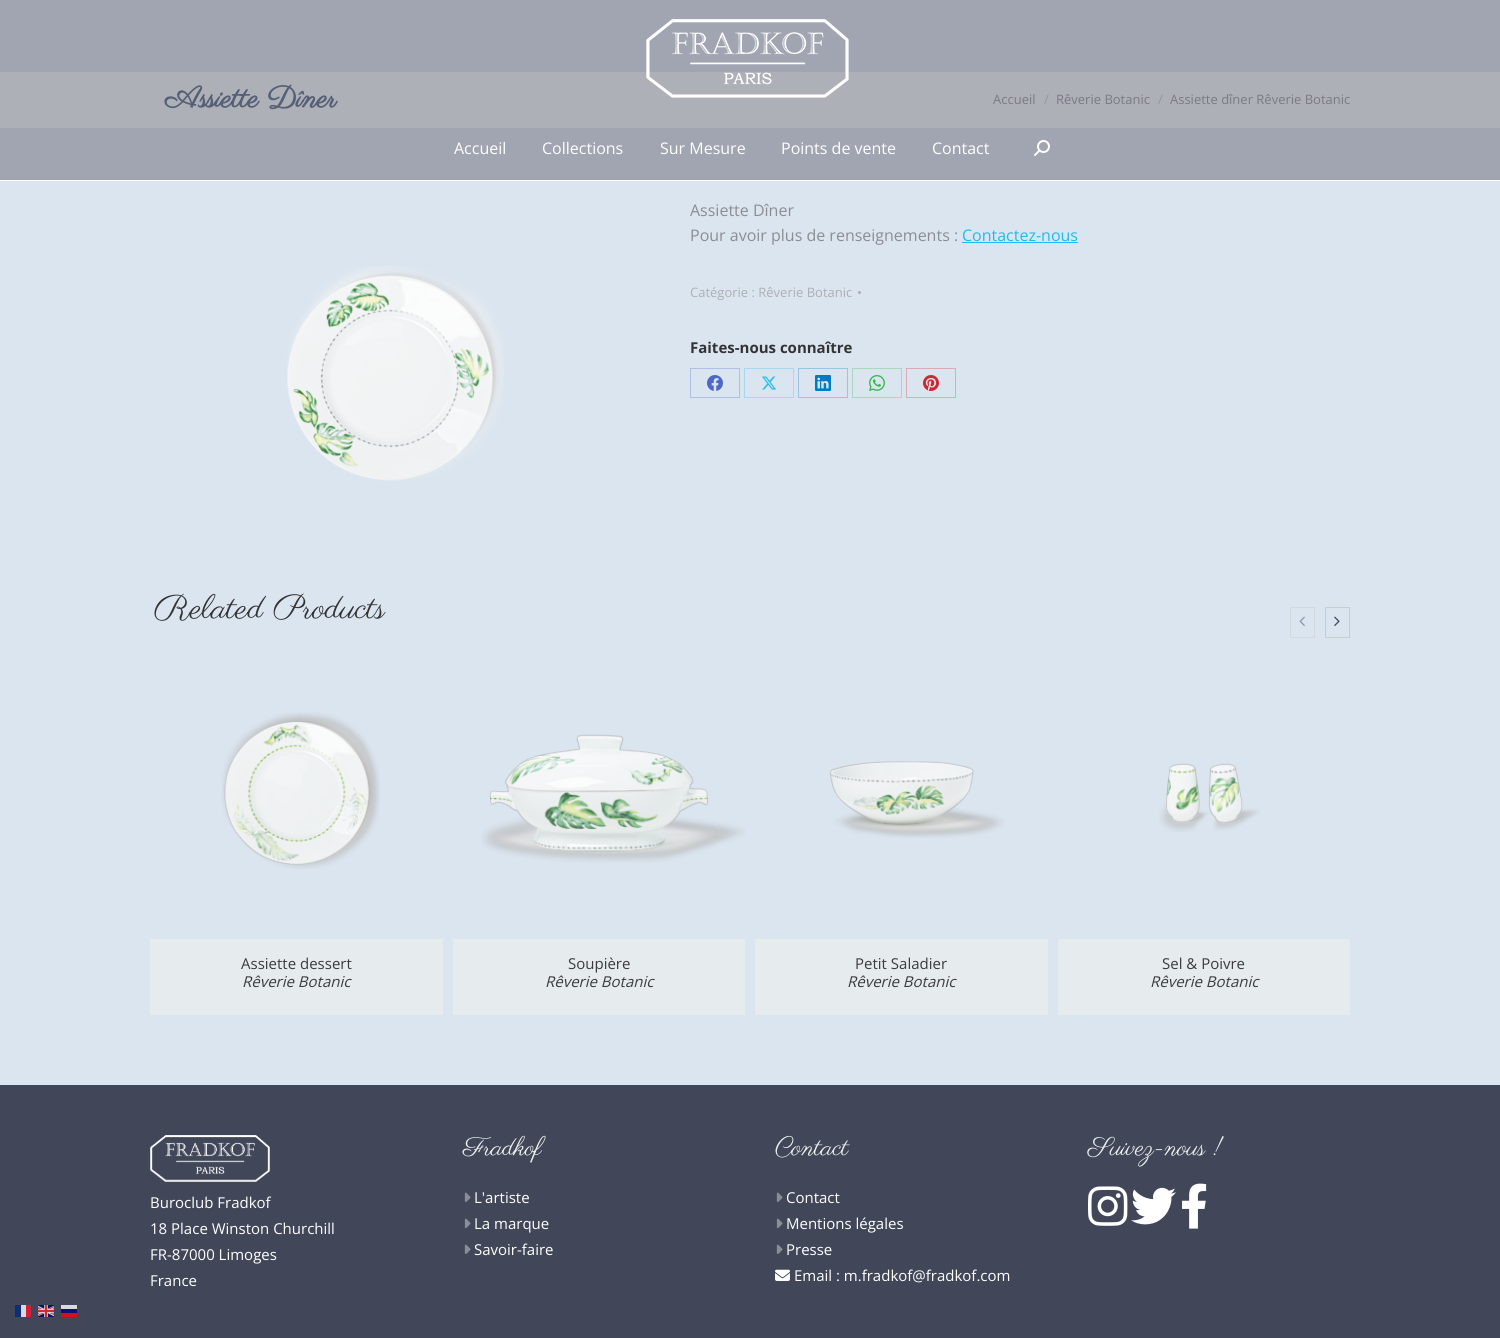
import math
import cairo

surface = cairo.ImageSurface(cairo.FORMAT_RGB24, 1500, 1338)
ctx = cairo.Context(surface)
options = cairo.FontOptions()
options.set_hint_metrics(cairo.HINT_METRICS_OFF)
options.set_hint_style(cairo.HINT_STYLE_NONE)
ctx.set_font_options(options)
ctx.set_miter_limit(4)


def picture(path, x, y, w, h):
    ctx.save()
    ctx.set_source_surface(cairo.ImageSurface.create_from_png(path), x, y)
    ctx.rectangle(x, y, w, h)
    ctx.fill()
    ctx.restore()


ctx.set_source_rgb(0.859, 0.898, 0.937)
ctx.paint()
ctx.set_source_rgb(0.627, 0.647, 0.694)
ctx.rectangle(0, 0, 1500, 180)
ctx.fill()
ctx.set_source_rgb(0.682, 0.69, 0.722)
ctx.rectangle(0, 72, 1500, 56)
ctx.fill()
ctx.select_font_face("Parisienne", cairo.FONT_SLANT_NORMAL, cairo.FONT_WEIGHT_BOLD)
ctx.set_font_size(30)
ctx.set_source_rgb(0.333, 0.373, 0.459)
ctx.move_to(165, 107)
ctx.show_text("Assiette Dîner")
ctx.select_font_face("Open Sans")
ctx.set_font_size(13)
ctx.set_source_rgb(0.475, 0.482, 0.51)
ctx.move_to(993, 104)
ctx.show_text("Accueil")
ctx.set_source_rgb(0.58, 0.584, 0.616)
ctx.move_to(1044, 104)
ctx.show_text("/")
ctx.set_source_rgb(0.475, 0.482, 0.51)
ctx.move_to(1056, 104)
ctx.show_text("Rêverie Botanic")
ctx.set_source_rgb(0.58, 0.584, 0.616)
ctx.move_to(1158, 104)
ctx.show_text("/")
ctx.set_source_rgb(0.475, 0.482, 0.51)
ctx.move_to(1170, 104)
ctx.show_text("Assiette dîner Rêverie Botanic")
ctx.set_source_rgb(1, 1, 1)
ctx.rectangle(0, 180, 1500, 1)
ctx.fill()
picture("img1.png", 646, 19, 203, 79)
ctx.set_font_size(16)
ctx.move_to(454, 154)
ctx.show_text("Accueil")
ctx.move_to(542, 154)
ctx.show_text("Collections")
ctx.move_to(660, 154)
ctx.show_text("Sur Mesure")
ctx.move_to(781, 154)
ctx.show_text("Points de vente")
ctx.move_to(932, 154)
ctx.show_text("Contact")
picture("img2.png", 1034, 140, 16, 16)
picture("img3.png", 287, 266, 217, 215)
ctx.set_source_rgb(0.545, 0.553, 0.58)
ctx.move_to(690, 216)
ctx.show_text("Assiette Dîner")
ctx.move_to(690, 241)
ctx.show_text("Pour avoir plus de renseignements :")
ctx.set_source_rgb(0.118, 0.733, 0.941)
ctx.move_to(962, 241)
ctx.show_text("Contactez-nous")
ctx.rectangle(962, 242, 116, 1)
ctx.fill()
ctx.set_font_size(13)
ctx.set_source_rgb(0.678, 0.686, 0.702)
ctx.move_to(690, 297)
ctx.show_text("Catégorie : Rêverie Botanic")
ctx.new_path()
ctx.arc(859.5, 292.5, 1.5, 0, 2 * math.pi)
ctx.fill()
ctx.select_font_face("Open Sans", cairo.FONT_SLANT_NORMAL, cairo.FONT_WEIGHT_BOLD)
ctx.set_font_size(15)
ctx.set_source_rgb(0.2, 0.2, 0.2)
ctx.move_to(690, 353)
ctx.show_text("Faites-nous connaître")
ctx.rectangle(690.5, 368.5, 49, 29)
ctx.set_source_rgb(0.69, 0.753, 0.89)
ctx.set_line_width(1)
ctx.stroke()
picture("img4.png", 707, 375, 16, 16)
ctx.rectangle(744.5, 368.5, 49, 29)
ctx.set_source_rgb(0.651, 0.851, 0.933)
ctx.stroke()
picture("img5.png", 762, 376, 15, 14)
ctx.rectangle(798.5, 368.5, 49, 29)
ctx.set_source_rgb(0.6, 0.773, 0.89)
ctx.stroke()
picture("img6.png", 815, 375, 16, 16)
ctx.rectangle(852.5, 368.5, 49, 29)
ctx.set_source_rgb(0.667, 0.843, 0.745)
ctx.stroke()
picture("img7.png", 869, 375, 16, 16)
ctx.rectangle(906.5, 368.5, 49, 29)
ctx.set_source_rgb(0.843, 0.675, 0.718)
ctx.stroke()
picture("img8.png", 923, 375, 16, 16)
ctx.select_font_face("Parisienne")
ctx.set_font_size(34)
ctx.set_source_rgb(0.2, 0.2, 0.2)
ctx.move_to(154, 618)
ctx.show_text("Related Products")
ctx.rectangle(1290.5, 607.5, 24, 30)
ctx.set_source_rgb(0.831, 0.851, 0.871)
ctx.stroke()
picture("img9.png", 1299, 616, 6, 10)
ctx.rectangle(1325.5, 607.5, 24, 30)
ctx.set_source_rgb(0.8, 0.8, 0.8)
ctx.stroke()
picture("img10.png", 1334, 616, 6, 10)
picture("img11.png", 221, 712, 159, 157)
ctx.set_source_rgb(0.902, 0.918, 0.933)
ctx.rectangle(150, 939, 293, 76)
ctx.fill()
ctx.select_font_face("Open Sans")
ctx.set_font_size(15)
ctx.set_source_rgb(0.231, 0.231, 0.231)
ctx.move_to(241, 969)
ctx.show_text("Assiette dessert")
ctx.select_font_face("Open Sans", cairo.FONT_SLANT_ITALIC)
ctx.move_to(242, 987)
ctx.show_text("Rêverie Botanic")
picture("img12.png", 481, 734, 264, 129)
ctx.set_source_rgb(0.902, 0.918, 0.933)
ctx.rectangle(453, 939, 292, 76)
ctx.fill()
ctx.select_font_face("Open Sans")
ctx.set_source_rgb(0.231, 0.231, 0.231)
ctx.move_to(568, 969)
ctx.show_text("Soupière")
ctx.select_font_face("Open Sans", cairo.FONT_SLANT_ITALIC)
ctx.move_to(545, 987)
ctx.show_text("Rêverie Botanic")
picture("img13.png", 829, 761, 175, 77)
ctx.set_source_rgb(0.902, 0.918, 0.933)
ctx.rectangle(755, 939, 293, 76)
ctx.fill()
ctx.select_font_face("Open Sans")
ctx.set_source_rgb(0.231, 0.231, 0.231)
ctx.move_to(855, 969)
ctx.show_text("Petit Saladier")
ctx.select_font_face("Open Sans", cairo.FONT_SLANT_ITALIC)
ctx.move_to(847, 987)
ctx.show_text("Rêverie Botanic")
picture("img14.png", 1159, 763, 101, 69)
ctx.set_source_rgb(0.902, 0.918, 0.933)
ctx.rectangle(1058, 939, 292, 76)
ctx.fill()
ctx.select_font_face("Open Sans")
ctx.set_source_rgb(0.231, 0.231, 0.231)
ctx.move_to(1162, 969)
ctx.show_text("Sel & Poivre")
ctx.select_font_face("Open Sans", cairo.FONT_SLANT_ITALIC)
ctx.move_to(1150, 987)
ctx.show_text("Rêverie Botanic")
ctx.set_source_rgb(0.255, 0.278, 0.349)
ctx.rectangle(0, 1085, 1500, 253)
ctx.fill()
ctx.select_font_face("Parisienne")
ctx.set_font_size(26)
ctx.set_source_rgb(0.933, 0.933, 0.933)
ctx.move_to(463, 1155)
ctx.show_text("Fradkof")
picture("img15.png", 464, 1192, 7, 10)
ctx.select_font_face("Open Sans")
ctx.set_font_size(15)
ctx.set_source_rgb(1, 1, 1)
ctx.move_to(474, 1203)
ctx.show_text("L'artiste")
picture("img15.png", 464, 1218, 7, 10)
ctx.move_to(474, 1229)
ctx.show_text("La marque")
picture("img15.png", 464, 1244, 7, 10)
ctx.move_to(474, 1255)
ctx.show_text("Savoir-faire")
ctx.select_font_face("Parisienne")
ctx.set_font_size(26)
ctx.set_source_rgb(0.933, 0.933, 0.933)
ctx.move_to(775, 1155)
ctx.show_text("Contact")
picture("img15.png", 776, 1192, 7, 10)
ctx.select_font_face("Open Sans")
ctx.set_font_size(15)
ctx.set_source_rgb(1, 1, 1)
ctx.move_to(786, 1203)
ctx.show_text("Contact")
picture("img15.png", 776, 1218, 7, 10)
ctx.move_to(786, 1229)
ctx.show_text("Mentions légales")
picture("img15.png", 776, 1244, 7, 10)
ctx.move_to(786, 1255)
ctx.show_text("Presse")
picture("img16.png", 775, 1269, 15, 12)
ctx.move_to(794, 1281)
ctx.show_text("Email : m.fradkof@fradkof.com")
ctx.select_font_face("Parisienne")
ctx.set_font_size(26)
ctx.set_source_rgb(0.933, 0.933, 0.933)
ctx.move_to(1088, 1155)
ctx.show_text("Suivez-nous !")
picture("img17.png", 1088, 1186, 40, 40)
picture("img18.png", 1131, 1187, 45, 38)
picture("img19.png", 1182, 1183, 25, 46)
picture("img20.png", 150, 1135, 120, 47)
ctx.select_font_face("Open Sans")
ctx.set_font_size(15)
ctx.set_source_rgb(1, 1, 1)
ctx.move_to(150, 1208)
ctx.show_text("Buroclub Fradkof")
ctx.move_to(150, 1234)
ctx.show_text("18 Place Winston Churchill")
ctx.move_to(150, 1260)
ctx.show_text("FR-87000 Limoges")
ctx.move_to(150, 1286)
ctx.show_text("France")
ctx.set_source_rgb(0.051, 0.176, 0.467)
ctx.rectangle(15, 1305, 6, 12)
ctx.fill()
ctx.set_source_rgb(0.851, 0.855, 0.871)
ctx.rectangle(21, 1305, 5, 12)
ctx.fill()
ctx.set_source_rgb(0.812, 0.129, 0.22)
ctx.rectangle(26, 1305, 5, 12)
ctx.fill()
picture("img21.png", 38, 1305, 16, 12)
ctx.set_source_rgb(0.851, 0.855, 0.871)
ctx.rectangle(61, 1305, 16, 4)
ctx.fill()
ctx.set_source_rgb(0.055, 0.059, 0.467)
ctx.rectangle(61, 1309, 16, 4)
ctx.fill()
ctx.set_source_rgb(0.847, 0.059, 0.075)
ctx.rectangle(61, 1313, 16, 4)
ctx.fill()
surface.write_to_png("page.png")
